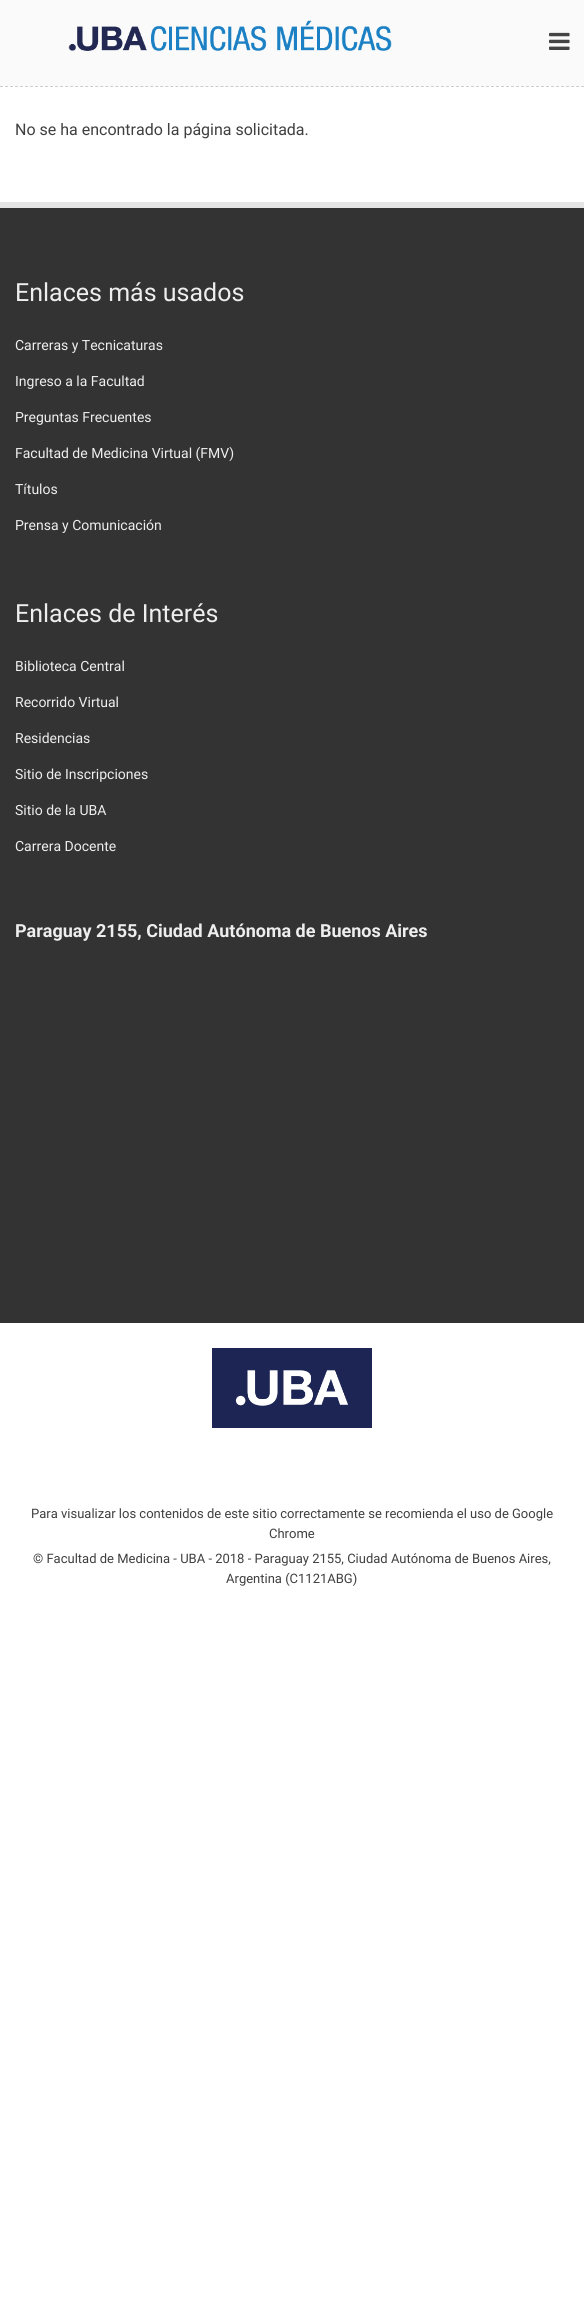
import math
import cairo

surface = cairo.ImageSurface(cairo.FORMAT_RGB24, 584, 2301)
ctx = cairo.Context(surface)
options = cairo.FontOptions()
options.set_hint_metrics(cairo.HINT_METRICS_OFF)
options.set_hint_style(cairo.HINT_STYLE_NONE)
ctx.set_font_options(options)
ctx.set_miter_limit(4)


def picture(path, x, y, w, h):
    ctx.save()
    ctx.set_source_surface(cairo.ImageSurface.create_from_png(path), x, y)
    ctx.rectangle(x, y, w, h)
    ctx.fill()
    ctx.restore()


ctx.set_source_rgb(1, 1, 1)
ctx.paint()
ctx.set_source_rgb(0.98, 0.98, 0.98)
ctx.rectangle(0, 0, 584, 86)
ctx.fill()
picture("img1.png", 68, 20, 324, 31)
ctx.new_path()
ctx.move_to(0, 86.5)
ctx.line_to(584, 86.5)
ctx.set_source_rgb(0.8, 0.8, 0.8)
ctx.set_line_width(1)
ctx.set_dash([3, 2.01])
ctx.stroke()
picture("img2.png", 549, 32, 21, 18)
ctx.set_source_rgb(0.898, 0.898, 0.898)
ctx.rectangle(0, 202, 584, 6)
ctx.fill()
ctx.select_font_face("Roboto")
ctx.set_font_size(16)
ctx.set_source_rgb(0.247, 0.247, 0.247)
ctx.move_to(15, 135)
ctx.show_text("No se ha encontrado la página solicitada.")
ctx.set_source_rgb(0.2, 0.2, 0.2)
ctx.rectangle(0, 208, 584, 1115)
ctx.fill()
ctx.set_font_size(25)
ctx.set_source_rgb(0.933, 0.933, 0.933)
ctx.move_to(15, 301)
ctx.show_text("Enlaces más usados")
ctx.set_font_size(14)
ctx.move_to(15, 350)
ctx.show_text("Carreras y Tecnicaturas")
ctx.move_to(15, 386)
ctx.show_text("Ingreso a la Facultad")
ctx.move_to(15, 422)
ctx.show_text("Preguntas Frecuentes")
ctx.move_to(15, 458)
ctx.show_text("Facultad de Medicina Virtual (FMV)")
ctx.move_to(15, 494)
ctx.show_text("Títulos")
ctx.move_to(15, 530)
ctx.show_text("Prensa y Comunicación")
ctx.set_font_size(25)
ctx.move_to(15, 622)
ctx.show_text("Enlaces de Interés")
ctx.set_font_size(14)
ctx.move_to(15, 671)
ctx.show_text("Biblioteca Central")
ctx.move_to(15, 707)
ctx.show_text("Recorrido Virtual")
ctx.move_to(15, 743)
ctx.show_text("Residencias")
ctx.move_to(15, 779)
ctx.show_text("Sitio de Inscripciones")
ctx.move_to(15, 815)
ctx.show_text("Sitio de la UBA")
ctx.move_to(15, 851)
ctx.show_text("Carrera Docente")
ctx.select_font_face("Roboto", cairo.FONT_SLANT_NORMAL, cairo.FONT_WEIGHT_BOLD)
ctx.set_font_size(18)
ctx.move_to(15, 937)
ctx.show_text("Paraguay 2155, Ciudad Autónoma de Buenos Aires")
picture("img3.png", 212, 1348, 160, 80)
ctx.select_font_face("Roboto")
ctx.set_font_size(13)
ctx.set_source_rgb(0.247, 0.247, 0.247)
ctx.move_to(31, 1518)
ctx.show_text("Para visualizar los contenidos de este sitio correctamente se recomienda el uso de Google")
ctx.move_to(269, 1538)
ctx.show_text("Chrome")
ctx.move_to(33, 1563)
ctx.show_text("© Facultad de Medicina - UBA - 2018 - Paraguay 2155, Ciudad Autónoma de Buenos Aires,")
ctx.move_to(226, 1583)
ctx.show_text("Argentina (C1121ABG)")
surface.write_to_png("page.png")
